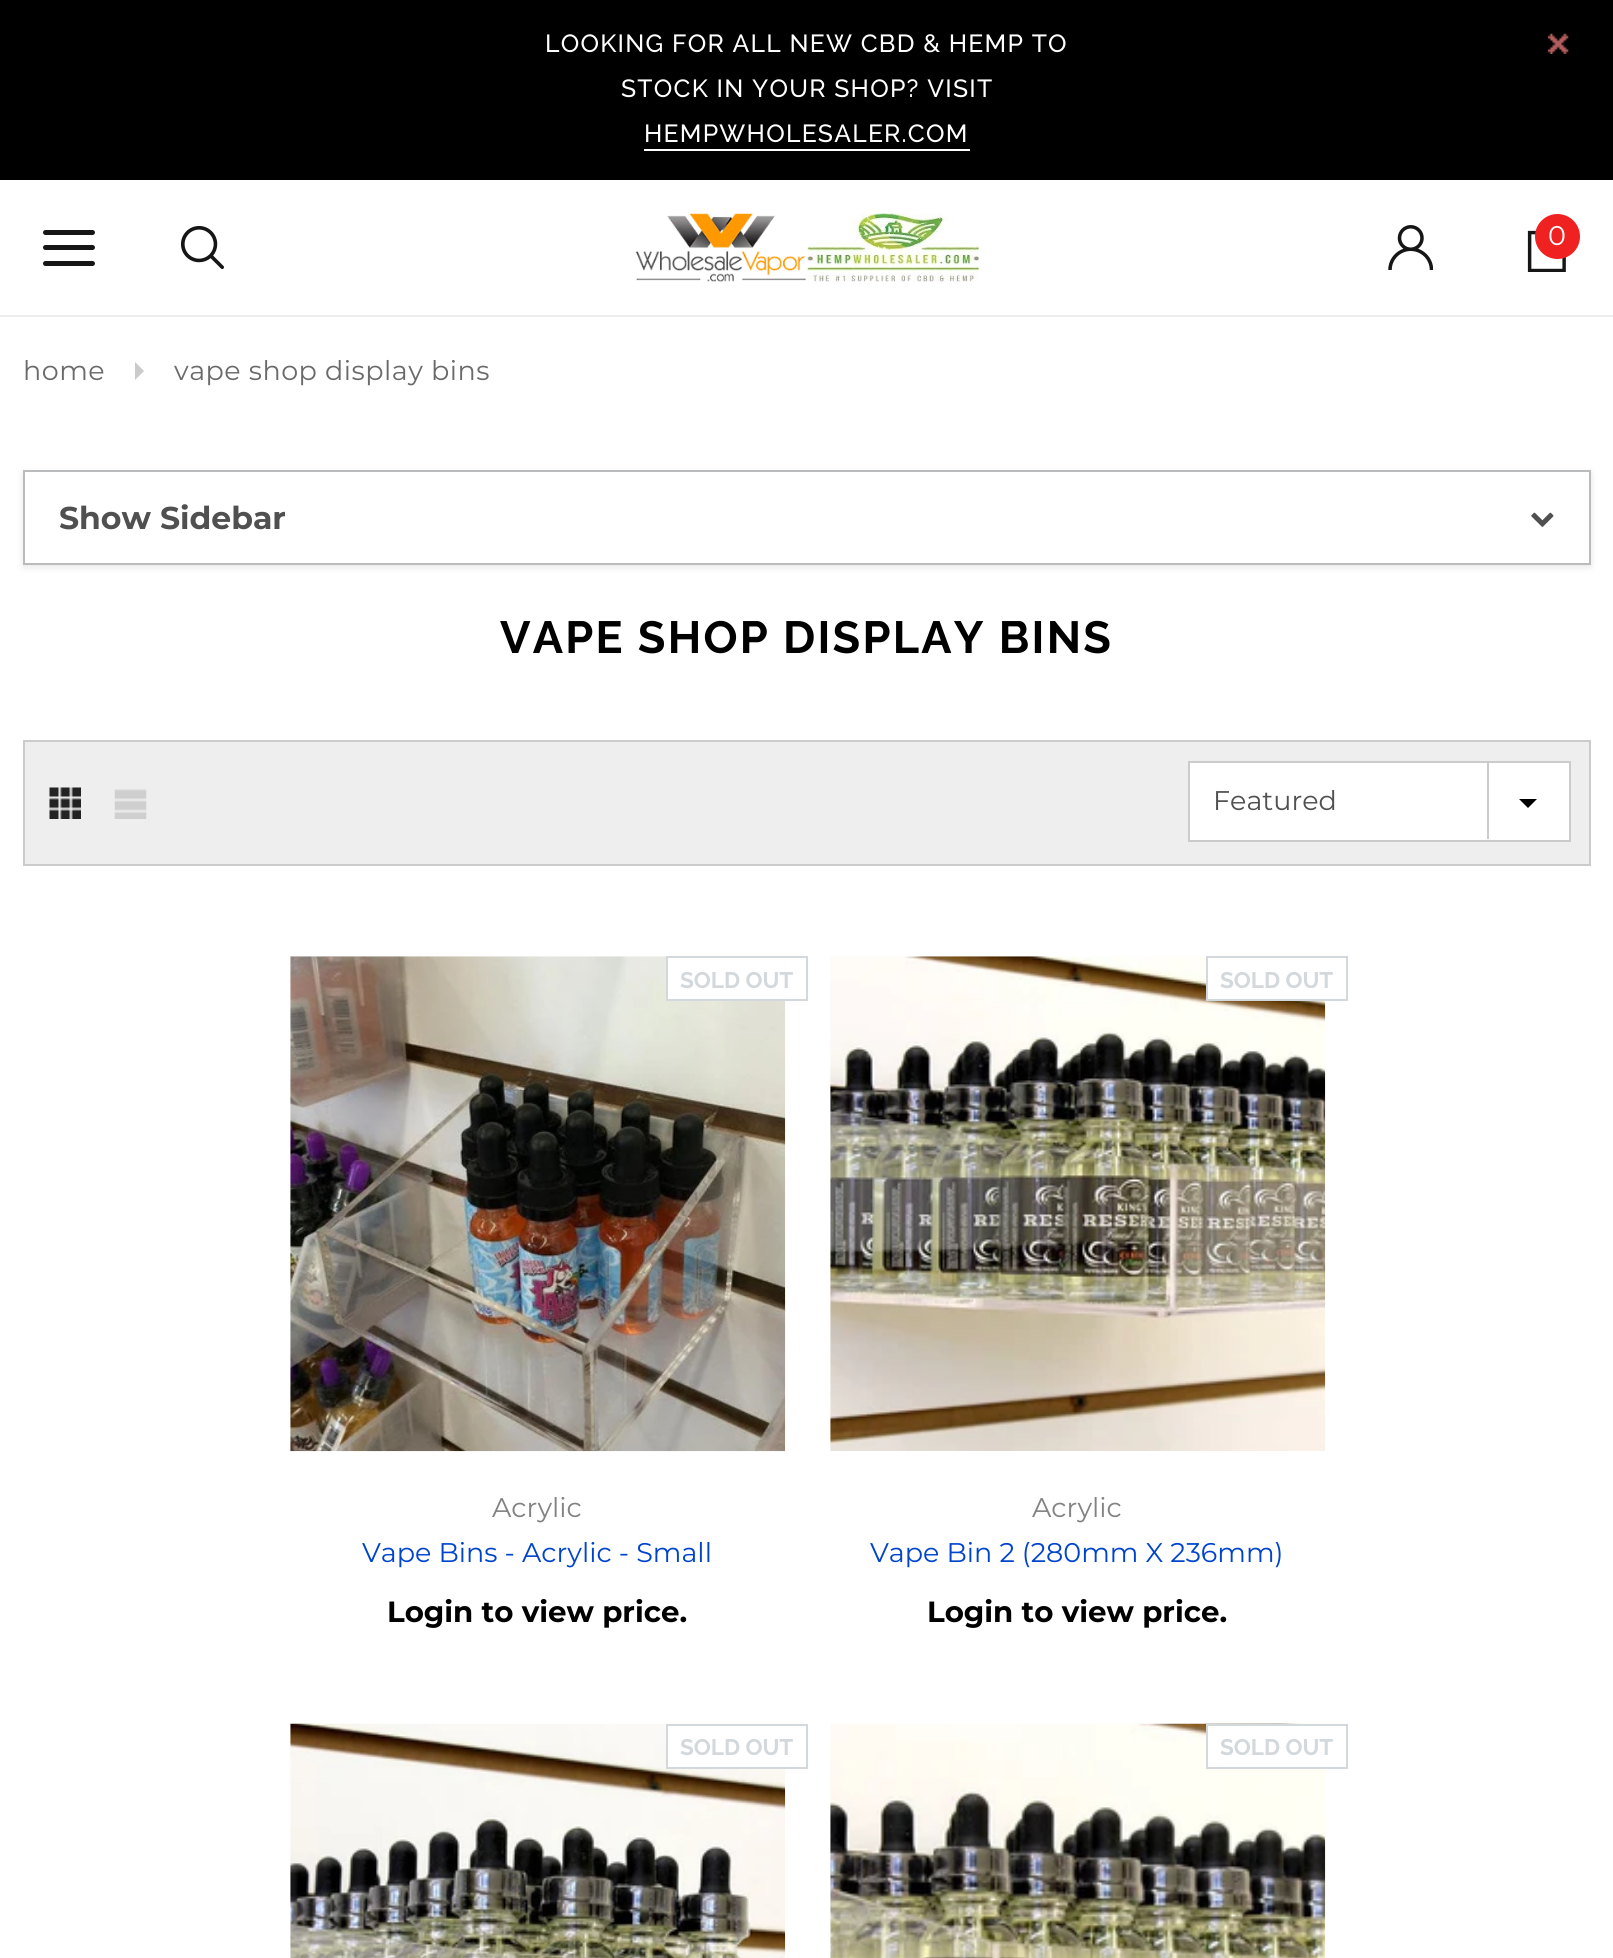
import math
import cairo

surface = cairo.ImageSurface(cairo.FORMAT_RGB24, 1613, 1958)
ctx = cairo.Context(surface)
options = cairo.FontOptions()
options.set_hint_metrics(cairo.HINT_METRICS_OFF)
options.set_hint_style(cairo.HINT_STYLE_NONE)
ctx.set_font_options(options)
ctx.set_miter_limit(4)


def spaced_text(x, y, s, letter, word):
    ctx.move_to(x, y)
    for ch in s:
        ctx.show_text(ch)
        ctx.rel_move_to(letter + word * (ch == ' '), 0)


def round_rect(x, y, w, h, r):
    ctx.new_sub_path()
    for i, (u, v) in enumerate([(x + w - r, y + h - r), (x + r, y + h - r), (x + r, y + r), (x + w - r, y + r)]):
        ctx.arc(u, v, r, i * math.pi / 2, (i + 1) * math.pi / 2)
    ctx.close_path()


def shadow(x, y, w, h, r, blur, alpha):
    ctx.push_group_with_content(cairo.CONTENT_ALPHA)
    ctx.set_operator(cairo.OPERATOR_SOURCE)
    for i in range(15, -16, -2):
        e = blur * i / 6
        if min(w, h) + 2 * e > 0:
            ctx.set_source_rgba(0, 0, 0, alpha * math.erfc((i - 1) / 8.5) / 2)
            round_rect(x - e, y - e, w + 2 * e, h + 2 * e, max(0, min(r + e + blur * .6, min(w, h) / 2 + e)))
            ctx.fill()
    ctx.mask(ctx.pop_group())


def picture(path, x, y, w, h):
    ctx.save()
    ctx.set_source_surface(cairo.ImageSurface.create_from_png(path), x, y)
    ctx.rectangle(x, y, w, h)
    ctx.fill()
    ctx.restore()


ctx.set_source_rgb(1, 1, 1)
ctx.paint()
ctx.set_source_rgb(0, 0, 0)
ctx.rectangle(0, 0, 1613, 180)
ctx.fill()
ctx.select_font_face("Raleway Medium")
ctx.set_font_size(24.75)
ctx.set_source_rgb(1, 1, 1)
spaced_text(545, 52, "LOOKING FOR ALL NEW CBD & HEMP TO", 1.25, 0)
picture("img1.png", 1548, 33, 21, 21)
spaced_text(621, 97, "STOCK IN YOUR SHOP? VISIT", 1.25, 0)
spaced_text(644, 142, "HEMPWHOLESALER.COM", 1.25, 0)
ctx.rectangle(644, 149, 326, 2)
ctx.fill()
ctx.set_source_rgb(0.922, 0.922, 0.922)
ctx.rectangle(0, 315, 1613, 2)
ctx.fill()
ctx.set_source_rgb(0.086, 0.086, 0.086)
round_rect(43, 245, 52, 5, 2.5)
ctx.fill()
round_rect(43, 230, 52, 5, 2.5)
ctx.fill()
round_rect(43, 261, 52, 5, 2.5)
ctx.fill()
picture("img2.png", 181, 226, 43, 43)
picture("img3.png", 635, 213, 171, 69)
picture("img4.png", 807, 213, 172, 69)
picture("img5.png", 1388, 225, 45, 45)
picture("img6.png", 1527, 225, 39, 47)
ctx.set_source_rgb(0.941, 0.129, 0.129)
ctx.arc(1557.5, 236.5, 22.5, 0, 2 * math.pi)
ctx.fill()
ctx.select_font_face("Montserrat")
ctx.set_font_size(27)
ctx.set_source_rgb(1, 1, 1)
spaced_text(1548, 245, "0", 0.5, 0)
ctx.set_source_rgb(0.416, 0.416, 0.416)
spaced_text(23, 380, "home", 0.5, 0)
ctx.set_source_rgb(0.796, 0.796, 0.796)
ctx.new_path()
ctx.move_to(135, 380)
ctx.line_to(135, 362)
ctx.line_to(144, 371)
ctx.close_path()
ctx.fill()
ctx.set_source_rgb(0.416, 0.416, 0.416)
spaced_text(174, 380, "vape shop display bins", 0.5, 0)
ctx.set_source_rgb(0, 0, 0)
shadow(23, 473, 1568, 94, 0, 3.5, 0.1)
ctx.set_source_rgb(1, 1, 1)
ctx.rectangle(24, 471, 1566, 93)
ctx.fill_preserve()
ctx.set_source_rgb(0.725, 0.733, 0.741)
ctx.stroke()
ctx.select_font_face("Montserrat", cairo.FONT_SLANT_NORMAL, cairo.FONT_WEIGHT_BOLD)
ctx.set_font_size(31.5)
ctx.set_source_rgb(0.314, 0.314, 0.314)
ctx.move_to(59, 529)
ctx.show_text("Show Sidebar")
picture("img7.png", 1531, 512, 23, 15)
ctx.select_font_face("Raleway", cairo.FONT_SLANT_NORMAL, cairo.FONT_WEIGHT_BOLD)
ctx.set_font_size(45)
ctx.set_source_rgb(0, 0, 0)
spaced_text(500, 653, "VAPE SHOP DISPLAY BINS", 2.25, 0)
ctx.set_source_rgb(0.933, 0.933, 0.933)
ctx.rectangle(24, 741, 1566, 124)
ctx.fill_preserve()
ctx.set_source_rgb(0.796, 0.796, 0.796)
ctx.stroke()
picture("img8.png", 49, 787, 32, 32)
picture("img9.png", 114, 789, 33, 30)
ctx.set_source_rgb(1, 1, 1)
ctx.rectangle(1189, 762, 381, 79)
ctx.fill_preserve()
ctx.set_source_rgb(0.796, 0.796, 0.796)
ctx.stroke()
ctx.select_font_face("Montserrat")
ctx.set_font_size(27)
ctx.set_source_rgb(0.314, 0.314, 0.314)
ctx.move_to(1213, 810)
ctx.show_text("Featured")
ctx.set_source_rgb(0.796, 0.796, 0.796)
ctx.rectangle(1487, 763, 2, 76)
ctx.fill()
ctx.set_source_rgb(0, 0, 0)
ctx.new_path()
ctx.move_to(1519, 799)
ctx.line_to(1537, 799)
ctx.line_to(1528, 808)
ctx.close_path()
ctx.fill()
picture("img10.png", 290, 956, 496, 496)
ctx.set_source_rgb(1, 1, 1)
ctx.rectangle(668, 958, 117, 41)
ctx.fill()
ctx.rectangle(667, 957, 140, 43)
ctx.set_source_rgb(0.824, 0.847, 0.859)
ctx.stroke()
ctx.select_font_face("Raleway", cairo.FONT_SLANT_NORMAL, cairo.FONT_WEIGHT_BOLD)
ctx.set_font_size(22.5)
ctx.move_to(680, 988)
ctx.show_text("SOLD OUT")
ctx.select_font_face("Montserrat")
ctx.set_font_size(27)
ctx.set_source_rgb(0.51, 0.51, 0.51)
ctx.move_to(492, 1517)
ctx.show_text("Acrylic")
ctx.set_source_rgb(0, 0.267, 0.8)
ctx.move_to(362, 1562)
ctx.show_text("Vape Bins - Acrylic - Small")
ctx.select_font_face("Montserrat", cairo.FONT_SLANT_NORMAL, cairo.FONT_WEIGHT_BOLD)
ctx.set_font_size(29.25)
ctx.set_source_rgb(0, 0, 0)
ctx.move_to(387, 1622)
ctx.show_text("Login to view price.")
picture("img11.png", 830, 956, 496, 495)
ctx.set_source_rgb(1, 1, 1)
ctx.rectangle(1208, 958, 117, 41)
ctx.fill()
ctx.rectangle(1207, 957, 140, 43)
ctx.set_source_rgb(0.824, 0.847, 0.859)
ctx.stroke()
ctx.select_font_face("Raleway", cairo.FONT_SLANT_NORMAL, cairo.FONT_WEIGHT_BOLD)
ctx.set_font_size(22.5)
ctx.move_to(1220, 988)
ctx.show_text("SOLD OUT")
ctx.select_font_face("Montserrat")
ctx.set_font_size(27)
ctx.set_source_rgb(0.51, 0.51, 0.51)
ctx.move_to(1032, 1517)
ctx.show_text("Acrylic")
ctx.set_source_rgb(0, 0.267, 0.8)
ctx.move_to(870, 1562)
ctx.show_text("Vape Bin 2 (280mm X 236mm)")
ctx.select_font_face("Montserrat", cairo.FONT_SLANT_NORMAL, cairo.FONT_WEIGHT_BOLD)
ctx.set_font_size(29.25)
ctx.set_source_rgb(0, 0, 0)
ctx.move_to(927, 1622)
ctx.show_text("Login to view price.")
picture("img12.png", 290, 1723, 496, 235)
ctx.set_source_rgb(1, 1, 1)
ctx.rectangle(668, 1726, 117, 41)
ctx.fill()
ctx.rectangle(667, 1725, 140, 43)
ctx.set_source_rgb(0.824, 0.847, 0.859)
ctx.stroke()
ctx.select_font_face("Raleway", cairo.FONT_SLANT_NORMAL, cairo.FONT_WEIGHT_BOLD)
ctx.set_font_size(22.5)
ctx.move_to(680, 1755)
ctx.show_text("SOLD OUT")
picture("img13.png", 830, 1723, 496, 235)
ctx.set_source_rgb(1, 1, 1)
ctx.rectangle(1208, 1726, 118, 41)
ctx.fill()
ctx.rectangle(1207, 1725, 140, 43)
ctx.set_source_rgb(0.824, 0.847, 0.859)
ctx.stroke()
ctx.move_to(1220, 1755)
ctx.show_text("SOLD OUT")
surface.write_to_png("page.png")
